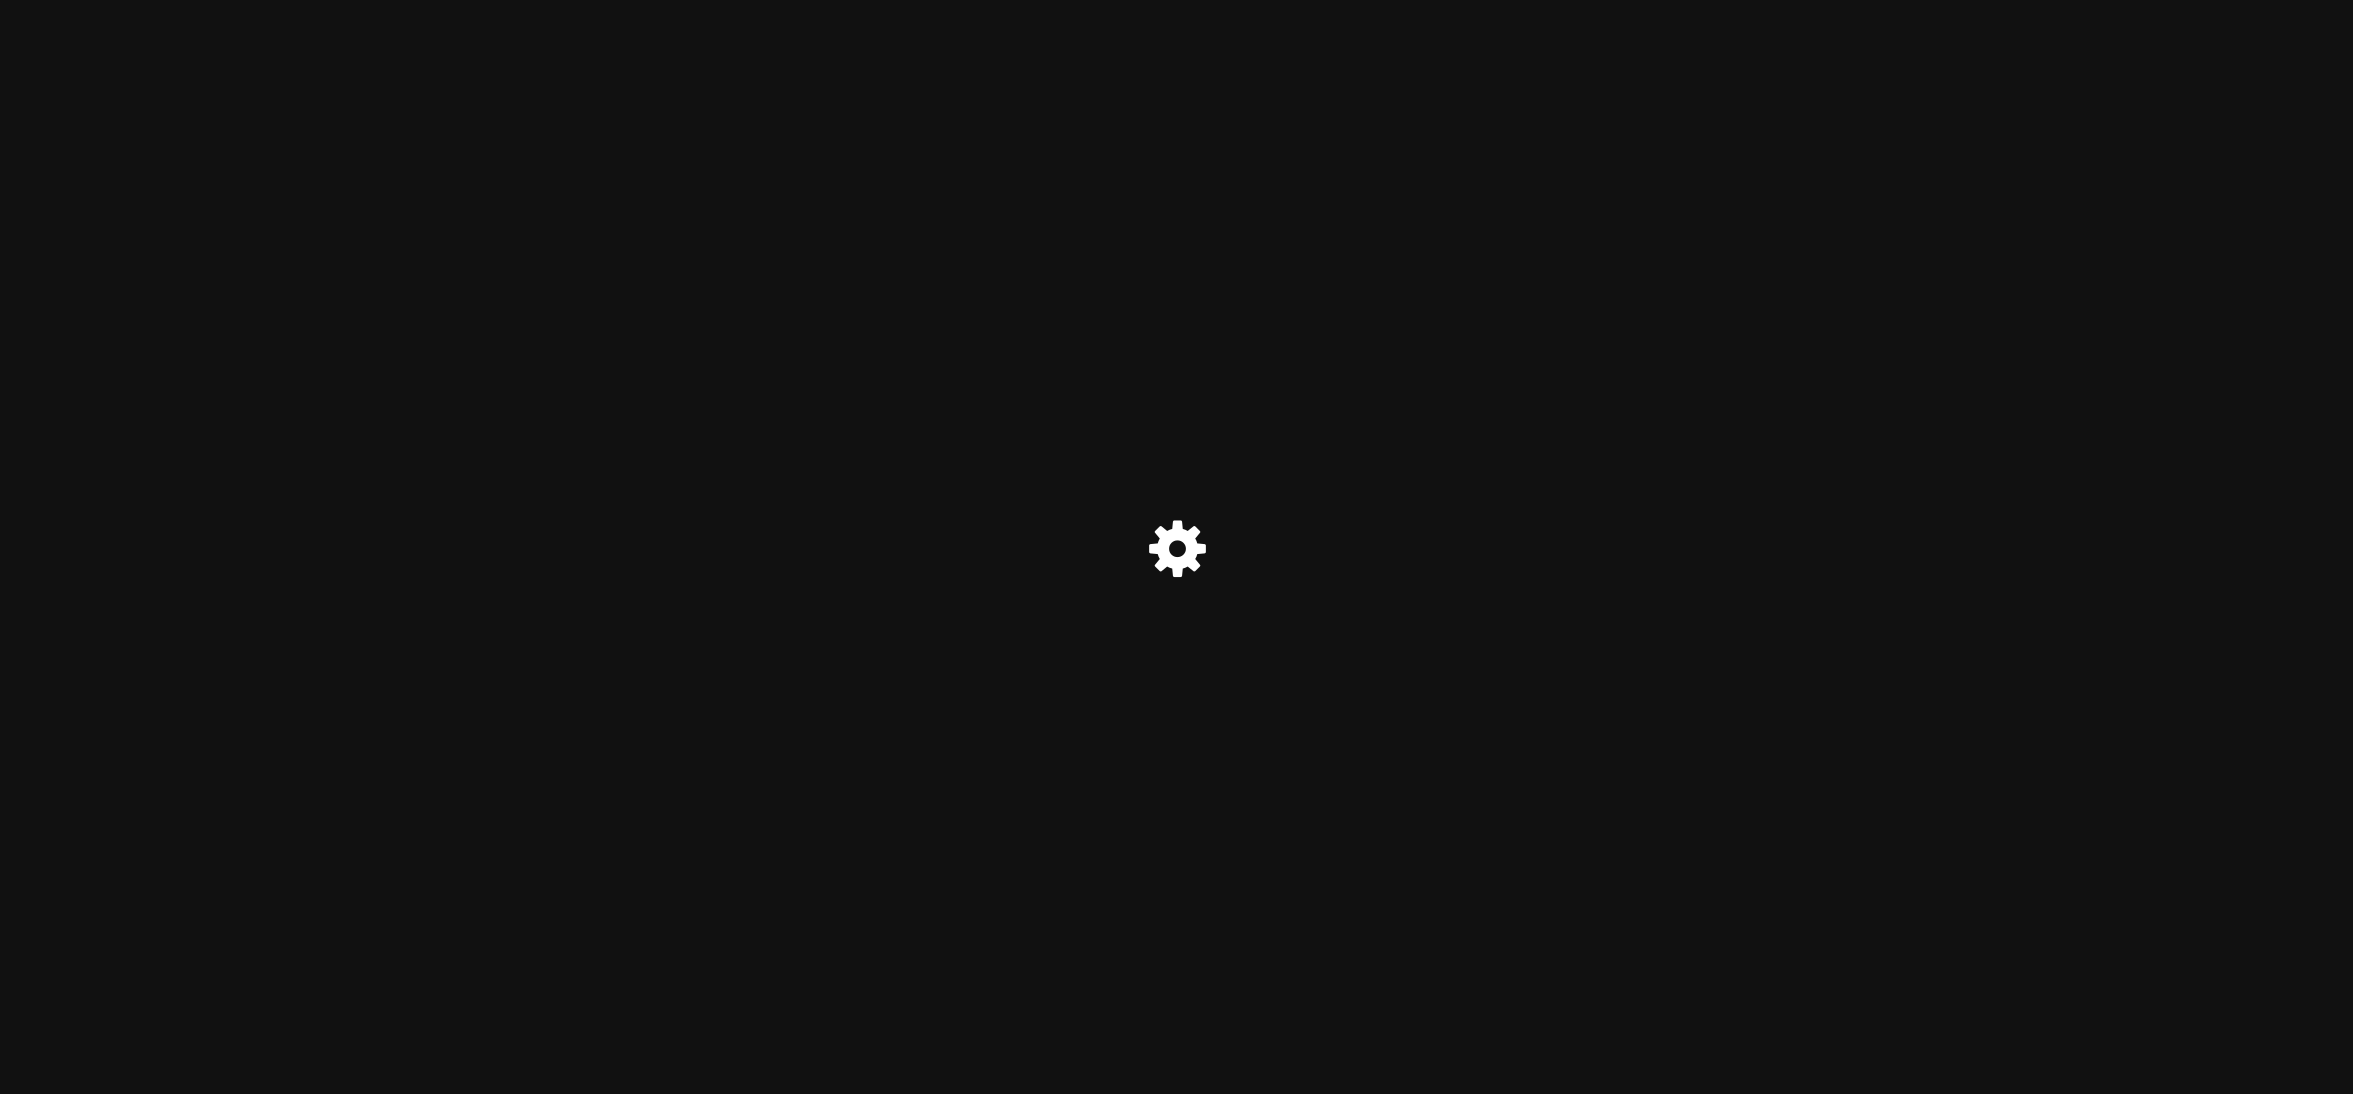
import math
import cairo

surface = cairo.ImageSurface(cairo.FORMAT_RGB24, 2353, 1094)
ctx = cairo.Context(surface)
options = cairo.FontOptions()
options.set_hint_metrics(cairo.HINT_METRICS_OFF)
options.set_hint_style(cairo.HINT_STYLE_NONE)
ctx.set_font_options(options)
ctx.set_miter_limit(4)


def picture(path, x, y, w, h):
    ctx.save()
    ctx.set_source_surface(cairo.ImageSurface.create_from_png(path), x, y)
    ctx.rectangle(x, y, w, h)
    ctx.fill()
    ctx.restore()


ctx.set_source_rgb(0.067, 0.067, 0.067)
ctx.paint()
picture("img1.png", 1149, 520, 57, 58)
surface.write_to_png("page.png")
